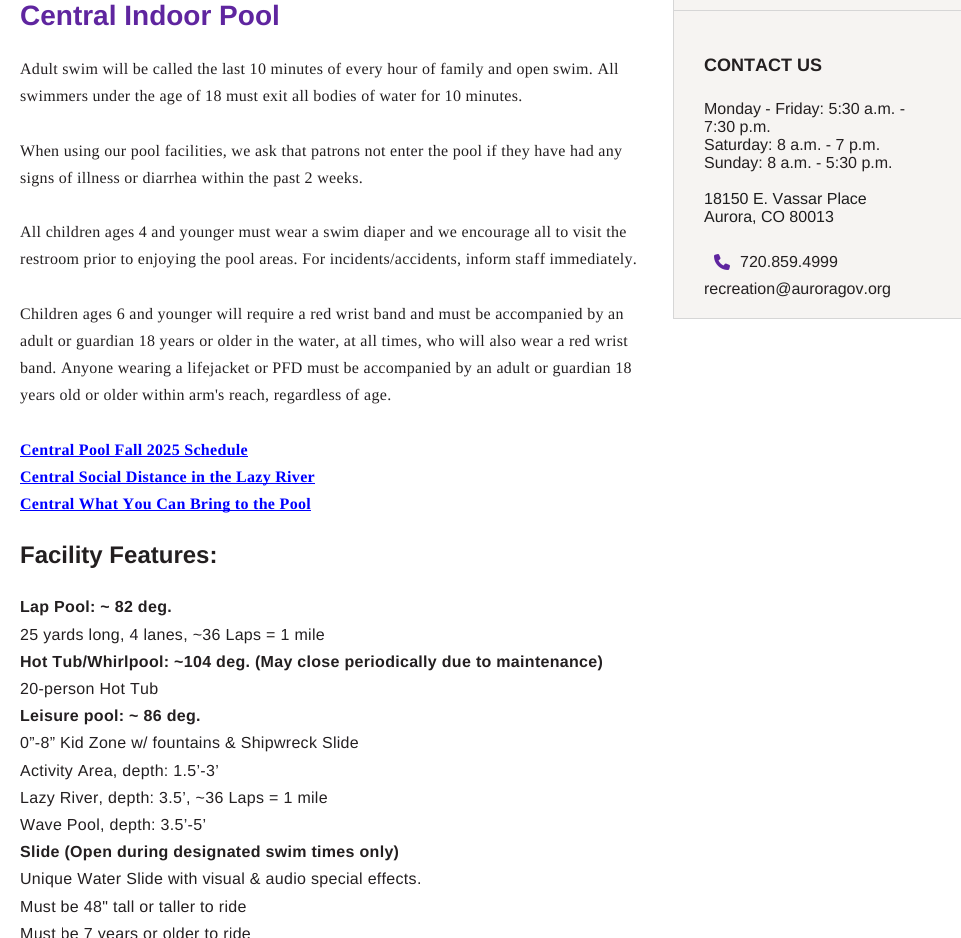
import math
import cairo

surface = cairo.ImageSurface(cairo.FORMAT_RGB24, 961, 938)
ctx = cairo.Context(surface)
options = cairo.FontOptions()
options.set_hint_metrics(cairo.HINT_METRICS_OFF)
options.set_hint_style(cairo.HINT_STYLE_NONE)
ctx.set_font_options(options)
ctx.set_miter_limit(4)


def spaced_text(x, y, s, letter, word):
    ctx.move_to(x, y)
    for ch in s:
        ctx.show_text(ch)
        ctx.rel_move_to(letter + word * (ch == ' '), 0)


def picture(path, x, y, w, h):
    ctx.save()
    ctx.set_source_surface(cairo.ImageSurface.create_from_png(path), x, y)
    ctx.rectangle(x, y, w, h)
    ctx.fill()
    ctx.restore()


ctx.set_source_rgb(1, 1, 1)
ctx.paint()
ctx.select_font_face("Liberation Sans", cairo.FONT_SLANT_NORMAL, cairo.FONT_WEIGHT_BOLD)
ctx.set_font_size(28)
ctx.set_source_rgb(0.373, 0.145, 0.624)
ctx.move_to(20, 25)
ctx.show_text("Central Indoor Pool")
ctx.select_font_face("Liberation Serif")
ctx.set_font_size(16)
ctx.set_source_rgb(0.137, 0.122, 0.125)
spaced_text(20, 74, "Adult swim will be called the last 10 minutes of every hour of family and open swim. All", 0.3, 0)
spaced_text(20, 101, "swimmers under the age of 18 must exit all bodies of water for 10 minutes.", 0.3, 0)
spaced_text(20, 156, "When using our pool facilities, we ask that patrons not enter the pool if they have had any", 0.3, 0)
spaced_text(20, 183, "signs of illness or diarrhea within the past 2 weeks.", 0.3, 0)
spaced_text(20, 237, "All children ages 4 and younger must wear a swim diaper and we encourage all to visit the", 0.3, 0)
spaced_text(20, 264, "restroom prior to enjoying the pool areas. For incidents/accidents, inform staff immediately.", 0.3, 0)
spaced_text(20, 319, "Children ages 6 and younger will require a red wrist band and must be accompanied by an", 0.3, 0)
spaced_text(20, 346, "adult or guardian 18 years or older in the water, at all times, who will also wear a red wrist", 0.3, 0)
spaced_text(20, 373, "band. Anyone wearing a lifejacket or PFD must be accompanied by an adult or guardian 18", 0.3, 0)
spaced_text(20, 400, "years old or older within arm's reach, regardless of age.", 0.3, 0)
ctx.select_font_face("Liberation Serif", cairo.FONT_SLANT_NORMAL, cairo.FONT_WEIGHT_BOLD)
ctx.set_source_rgb(0, 0, 1)
spaced_text(20, 455, "Central Pool Fall 2025 Schedule", 0.3, 0)
ctx.rectangle(20, 456, 228, 1)
ctx.fill()
ctx.rectangle(20, 483, 295, 1)
ctx.fill()
spaced_text(20, 482, "Central Social Distance in the Lazy River", 0.3, 0)
ctx.rectangle(20, 510, 291, 1)
ctx.fill()
spaced_text(20, 509, "Central What You Can Bring to the Pool", 0.3, 0)
ctx.select_font_face("Liberation Sans", cairo.FONT_SLANT_NORMAL, cairo.FONT_WEIGHT_BOLD)
ctx.set_font_size(24)
ctx.set_source_rgb(0.137, 0.122, 0.125)
ctx.move_to(20, 563)
ctx.show_text("Facility Features:")
ctx.set_font_size(16)
spaced_text(20, 612, "Lap Pool: ~ 82 deg.", 0.3, 0)
ctx.select_font_face("Liberation Sans")
spaced_text(20, 640, "25 yards long, 4 lanes, ~36 Laps = 1 mile", 0.3, 0)
ctx.select_font_face("Liberation Sans", cairo.FONT_SLANT_NORMAL, cairo.FONT_WEIGHT_BOLD)
spaced_text(20, 667, "Hot Tub/Whirlpool: ~104 deg. (May close periodically due to maintenance)", 0.3, 0)
ctx.select_font_face("Liberation Sans")
spaced_text(20, 694, "20-person Hot Tub", 0.3, 0)
ctx.select_font_face("Liberation Sans", cairo.FONT_SLANT_NORMAL, cairo.FONT_WEIGHT_BOLD)
spaced_text(20, 721, "Leisure pool: ~ 86 deg.", 0.3, 0)
ctx.select_font_face("Liberation Sans")
spaced_text(20, 748, "0”-8” Kid Zone w/ fountains & Shipwreck Slide", 0.3, 0)
spaced_text(20, 776, "Activity Area, depth: 1.5’-3’", 0.3, 0)
spaced_text(20, 803, "Lazy River, depth: 3.5’, ~36 Laps = 1 mile", 0.3, 0)
spaced_text(20, 830, "Wave Pool, depth: 3.5’-5’", 0.3, 0)
ctx.select_font_face("Liberation Sans", cairo.FONT_SLANT_NORMAL, cairo.FONT_WEIGHT_BOLD)
spaced_text(20, 857, "Slide (Open during designated swim times only)", 0.3, 0)
ctx.select_font_face("Liberation Sans")
spaced_text(20, 884, "Unique Water Slide with visual & audio special effects.", 0.3, 0)
spaced_text(20, 912, "Must be 48\" tall or taller to ride", 0.3, 0)
spaced_text(20, 939, "Must be 7 years or older to ride", 0.3, 0)
ctx.set_source_rgb(0.961, 0.957, 0.949)
ctx.rectangle(674, 0, 287, 318)
ctx.fill()
ctx.set_source_rgb(0.839, 0.839, 0.839)
ctx.rectangle(673, 0, 1, 319)
ctx.fill()
ctx.rectangle(674, 10, 287, 1)
ctx.fill()
ctx.rectangle(674, 318, 287, 1)
ctx.fill()
ctx.select_font_face("Liberation Sans", cairo.FONT_SLANT_NORMAL, cairo.FONT_WEIGHT_BOLD)
ctx.set_font_size(18)
ctx.set_source_rgb(0.137, 0.122, 0.125)
ctx.move_to(704, 71)
ctx.show_text("CONTACT US")
ctx.select_font_face("Liberation Sans")
ctx.set_font_size(16)
ctx.move_to(704, 114)
ctx.show_text("Monday - Friday: 5:30 a.m. -")
ctx.move_to(704, 132)
ctx.show_text("7:30 p.m.")
ctx.move_to(704, 150)
ctx.show_text("Saturday: 8 a.m. - 7 p.m.")
ctx.move_to(704, 168)
ctx.show_text("Sunday: 8 a.m. - 5:30 p.m.")
ctx.set_source_rgb(0.114, 0.114, 0.114)
ctx.move_to(704, 204)
ctx.show_text("18150 E. Vassar Place")
ctx.move_to(704, 222)
ctx.show_text("Aurora, CO 80013")
picture("img1.png", 714, 254, 16, 16)
ctx.set_source_rgb(0.137, 0.122, 0.125)
ctx.move_to(740, 267)
ctx.show_text("720.859.4999")
ctx.move_to(704, 294)
ctx.show_text("recreation@auroragov.org")
surface.write_to_png("page.png")
